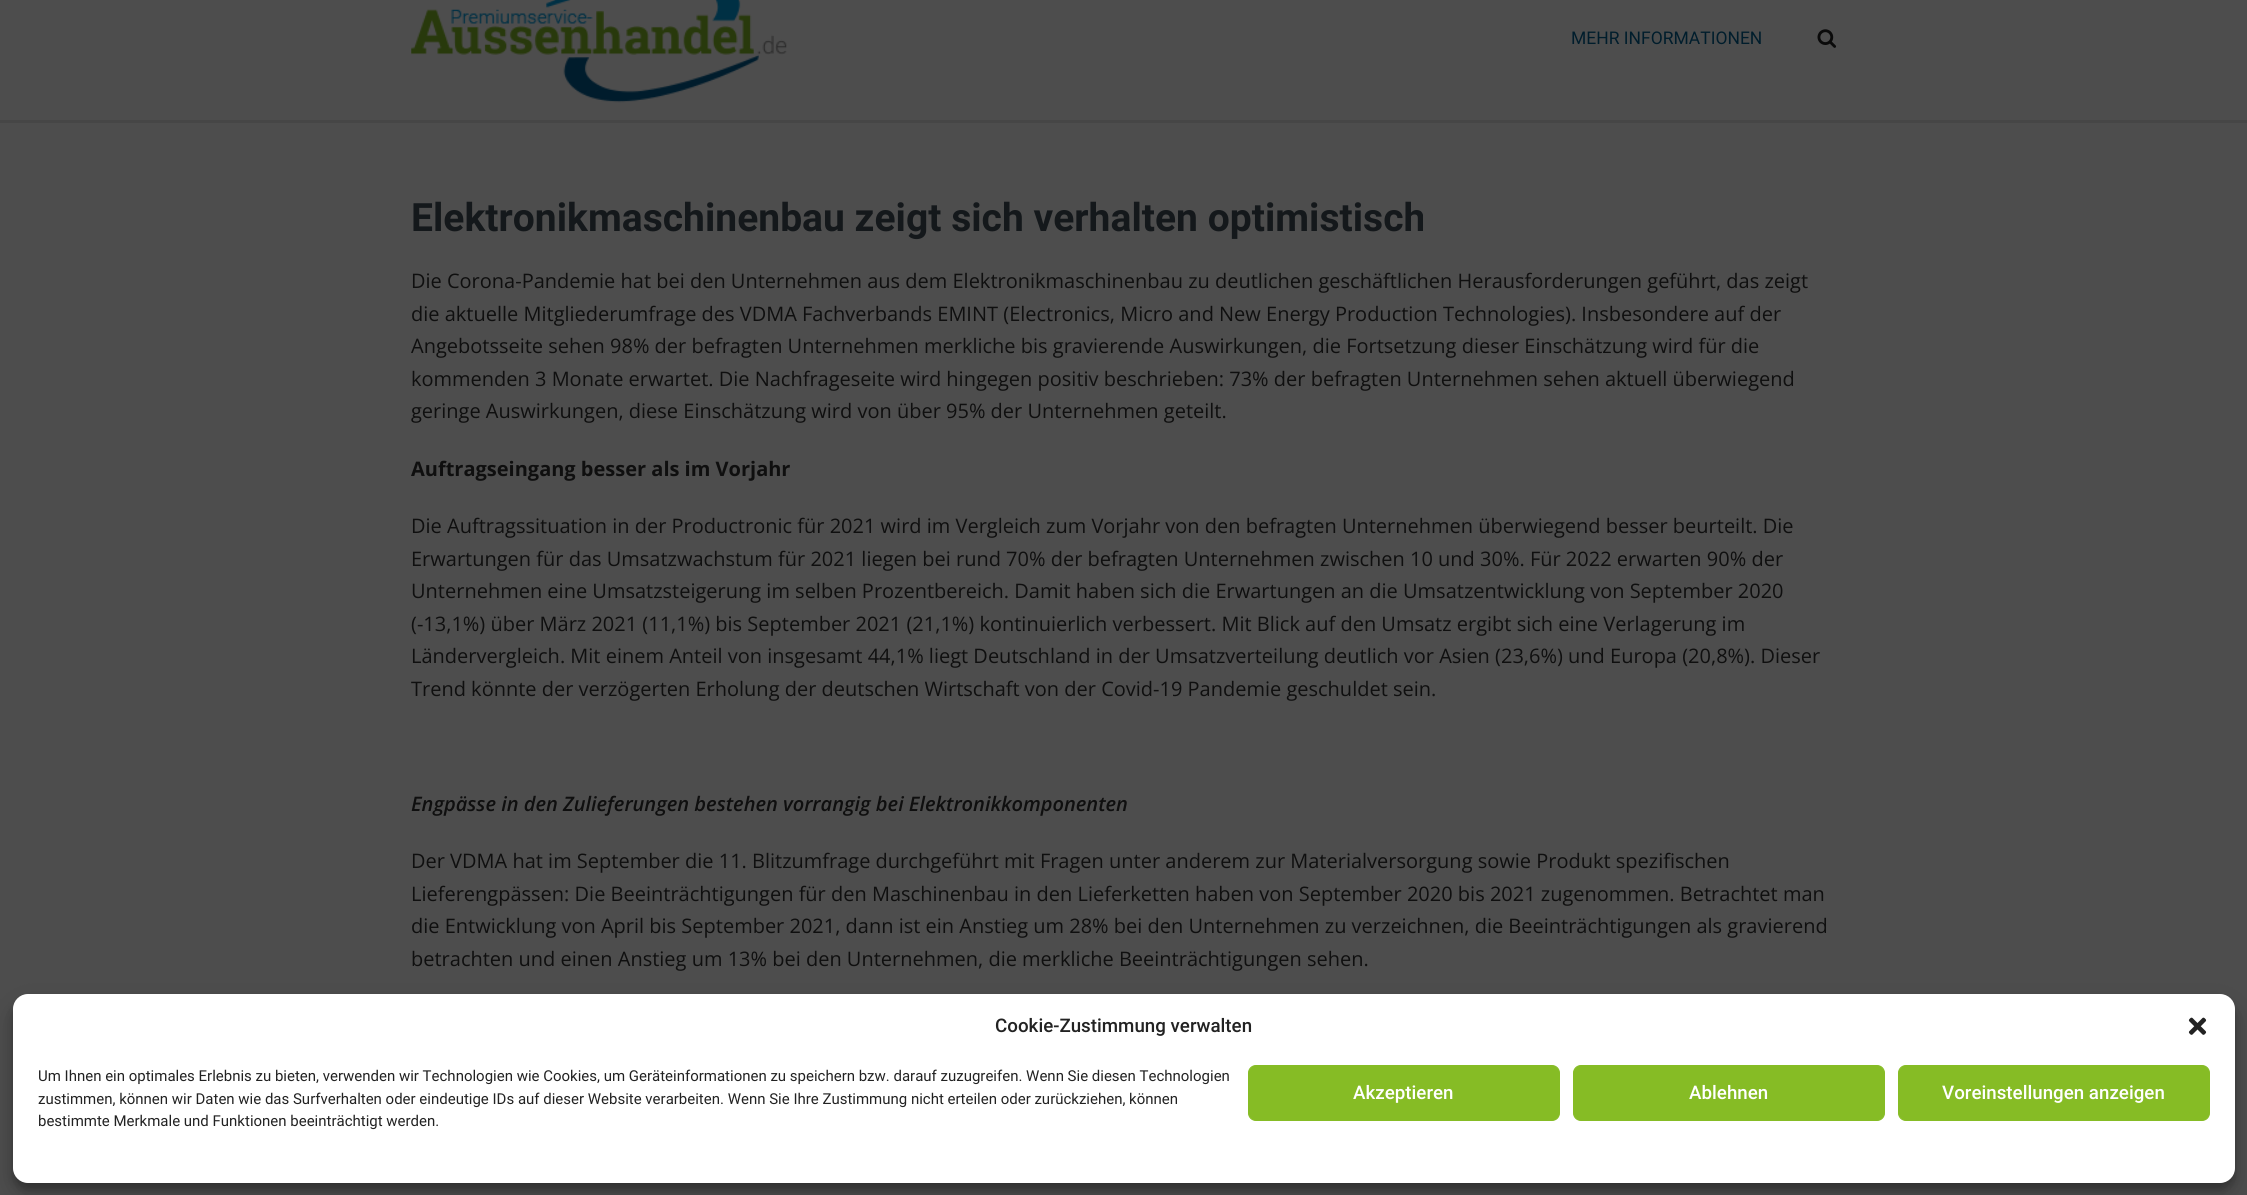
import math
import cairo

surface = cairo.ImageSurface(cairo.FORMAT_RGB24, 2247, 1195)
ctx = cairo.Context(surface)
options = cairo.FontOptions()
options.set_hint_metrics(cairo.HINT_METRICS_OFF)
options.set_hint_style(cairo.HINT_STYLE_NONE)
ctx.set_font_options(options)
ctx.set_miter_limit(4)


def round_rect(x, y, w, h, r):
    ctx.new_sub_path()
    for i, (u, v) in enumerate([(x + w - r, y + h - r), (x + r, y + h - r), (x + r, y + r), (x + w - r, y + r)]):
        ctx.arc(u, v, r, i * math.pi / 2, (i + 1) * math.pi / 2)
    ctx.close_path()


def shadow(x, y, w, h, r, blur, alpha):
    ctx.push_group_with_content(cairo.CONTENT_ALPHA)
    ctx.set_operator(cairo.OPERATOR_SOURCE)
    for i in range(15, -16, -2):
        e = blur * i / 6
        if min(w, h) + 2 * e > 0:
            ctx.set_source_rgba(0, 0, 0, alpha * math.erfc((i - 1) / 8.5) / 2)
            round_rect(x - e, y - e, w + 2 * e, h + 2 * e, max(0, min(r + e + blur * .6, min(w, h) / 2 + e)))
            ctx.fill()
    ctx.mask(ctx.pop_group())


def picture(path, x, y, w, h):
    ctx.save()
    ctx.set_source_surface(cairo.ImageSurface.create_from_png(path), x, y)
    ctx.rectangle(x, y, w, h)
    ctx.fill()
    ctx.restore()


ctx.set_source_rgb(0.302, 0.302, 0.302)
ctx.paint()
ctx.set_source_rgb(0.275, 0.275, 0.275)
ctx.rectangle(0, 120, 2247, 3)
ctx.fill()
picture("img1.png", 411, 0, 376, 103)
ctx.select_font_face("Roboto")
ctx.set_font_size(17.5)
ctx.set_source_rgb(0, 0.114, 0.173)
ctx.move_to(1571, 44)
ctx.show_text("MEHR INFORMATIONEN")
picture("img2.png", 1817, 29, 20, 19)
ctx.select_font_face("Roboto", cairo.FONT_SLANT_NORMAL, cairo.FONT_WEIGHT_BOLD)
ctx.set_font_size(39.05)
ctx.set_source_rgb(0.082, 0.094, 0.106)
ctx.move_to(411, 231)
ctx.show_text("Elektronikmaschinenbau zeigt sich verhalten optimistisch")
ctx.select_font_face("Open Sans")
ctx.set_font_size(20)
ctx.set_source_rgb(0.059, 0.059, 0.059)
ctx.move_to(411, 288)
ctx.show_text("Die Corona-Pandemie hat bei den Unternehmen aus dem Elektronikmaschinenbau zu deutlichen geschäftlichen Herausforderungen geführt, das zeigt")
ctx.move_to(411, 321)
ctx.show_text("die aktuelle Mitgliederumfrage des VDMA Fachverbands EMINT (Electronics, Micro and New Energy Production Technologies). Insbesondere auf der")
ctx.move_to(411, 353)
ctx.show_text("Angebotsseite sehen 98% der befragten Unternehmen merkliche bis gravierende Auswirkungen, die Fortsetzung dieser Einschätzung wird für die")
ctx.move_to(411, 386)
ctx.show_text("kommenden 3 Monate erwartet. Die Nachfrageseite wird hingegen positiv beschrieben: 73% der befragten Unternehmen sehen aktuell überwiegend")
ctx.move_to(411, 418)
ctx.show_text("geringe Auswirkungen, diese Einschätzung wird von über 95% der Unternehmen geteilt.")
ctx.select_font_face("Open Sans", cairo.FONT_SLANT_NORMAL, cairo.FONT_WEIGHT_BOLD)
ctx.move_to(411, 476)
ctx.show_text("Auftragseingang besser als im Vorjahr")
ctx.select_font_face("Open Sans")
ctx.move_to(411, 533)
ctx.show_text("Die Auftragssituation in der Productronic für 2021 wird im Vergleich zum Vorjahr von den befragten Unternehmen überwiegend besser beurteilt. Die")
ctx.move_to(411, 566)
ctx.show_text("Erwartungen für das Umsatzwachstum für 2021 liegen bei rund 70% der befragten Unternehmen zwischen 10 und 30%. Für 2022 erwarten 90% der")
ctx.move_to(411, 598)
ctx.show_text("Unternehmen eine Umsatzsteigerung im selben Prozentbereich. Damit haben sich die Erwartungen an die Umsatzentwicklung von September 2020")
ctx.move_to(411, 631)
ctx.show_text("(-13,1%) über März 2021 (11,1%) bis September 2021 (21,1%) kontinuierlich verbessert. Mit Blick auf den Umsatz ergibt sich eine Verlagerung im")
ctx.move_to(411, 663)
ctx.show_text("Ländervergleich. Mit einem Anteil von insgesamt 44,1% liegt Deutschland in der Umsatzverteilung deutlich vor Asien (23,6%) und Europa (20,8%). Dieser")
ctx.move_to(411, 696)
ctx.show_text("Trend könnte der verzögerten Erholung der deutschen Wirtschaft von der Covid-19 Pandemie geschuldet sein.")
ctx.select_font_face("Open Sans SemiBold", cairo.FONT_SLANT_ITALIC)
ctx.move_to(411, 811)
ctx.show_text("Engpässe in den Zulieferungen bestehen vorrangig bei Elektronikkomponenten")
ctx.select_font_face("Open Sans")
ctx.move_to(411, 868)
ctx.show_text("Der VDMA hat im September die 11. Blitzumfrage durchgeführt mit Fragen unter anderem zur Materialversorgung sowie Produkt spezifischen")
ctx.move_to(411, 901)
ctx.show_text("Lieferengpässen: Die Beeinträchtigungen für den Maschinenbau in den Lieferketten haben von September 2020 bis 2021 zugenommen. Betrachtet man")
ctx.move_to(411, 933)
ctx.show_text("die Entwicklung von April bis September 2021, dann ist ein Anstieg um 28% bei den Unternehmen zu verzeichnen, die Beeinträchtigungen als gravierend")
ctx.move_to(411, 966)
ctx.show_text("betrachten und einen Anstieg um 13% bei den Unternehmen, die merkliche Beeinträchtigungen sehen.")
ctx.set_source_rgb(0, 0, 0)
shadow(13, 1001, 2222, 189, 15, 4, 0.23)
shadow(13, 1006, 2222, 189, 15, 12.5, 0.19)
ctx.set_source_rgb(1, 1, 1)
round_rect(13, 994, 2222, 189, 15)
ctx.fill()
ctx.select_font_face("Roboto Medium")
ctx.set_font_size(18.75)
ctx.set_source_rgb(0.133, 0.133, 0.133)
ctx.move_to(995, 1032)
ctx.show_text("Cookie-Zustimmung verwalten")
picture("img3.png", 2188, 1017, 19, 18)
ctx.select_font_face("Roboto")
ctx.set_font_size(15)
ctx.move_to(38, 1081)
ctx.show_text("Um Ihnen ein optimales Erlebnis zu bieten, verwenden wir Technologien wie Cookies, um Geräteinformationen zu speichern bzw. darauf zuzugreifen. Wenn Sie diesen Technologien")
ctx.move_to(38, 1104)
ctx.show_text("zustimmen, können wir Daten wie das Surfverhalten oder eindeutige IDs auf dieser Website verarbeiten. Wenn Sie Ihre Zustimmung nicht erteilen oder zurückziehen, können")
ctx.move_to(38, 1126)
ctx.show_text("bestimmte Merkmale und Funktionen beeinträchtigt werden.")
ctx.set_source_rgb(0.525, 0.737, 0.145)
round_rect(1248.5, 1065.5, 311, 55, 7.5)
ctx.fill_preserve()
ctx.set_line_width(1)
ctx.stroke()
ctx.select_font_face("Roboto Medium")
ctx.set_font_size(18.75)
ctx.set_source_rgb(1, 1, 1)
ctx.move_to(1353, 1099)
ctx.show_text("Akzeptieren")
ctx.set_source_rgb(0.525, 0.737, 0.145)
round_rect(1573.5, 1065.5, 311, 55, 7.5)
ctx.fill_preserve()
ctx.stroke()
ctx.set_source_rgb(1, 1, 1)
ctx.move_to(1689, 1099)
ctx.show_text("Ablehnen")
ctx.set_source_rgb(0.525, 0.737, 0.145)
round_rect(1898.5, 1065.5, 311, 55, 7.5)
ctx.fill_preserve()
ctx.stroke()
ctx.set_source_rgb(1, 1, 1)
ctx.move_to(1942, 1099)
ctx.show_text("Voreinstellungen anzeigen")
surface.write_to_png("page.png")
